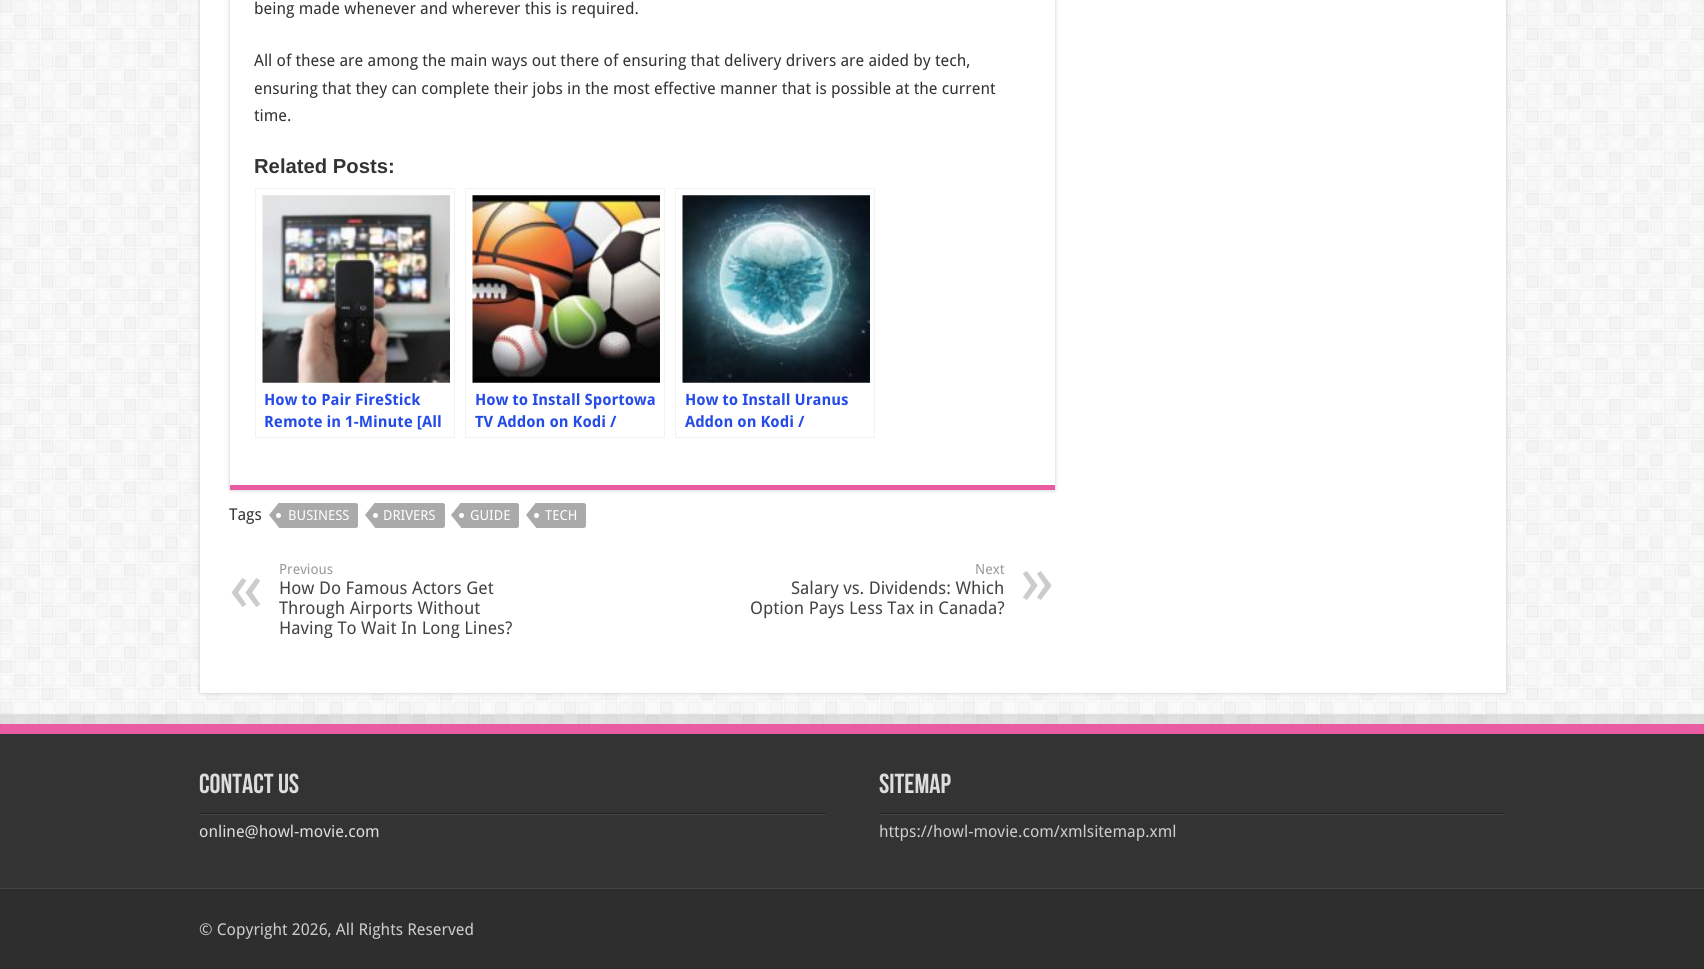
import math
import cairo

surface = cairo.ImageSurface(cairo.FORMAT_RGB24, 1704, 969)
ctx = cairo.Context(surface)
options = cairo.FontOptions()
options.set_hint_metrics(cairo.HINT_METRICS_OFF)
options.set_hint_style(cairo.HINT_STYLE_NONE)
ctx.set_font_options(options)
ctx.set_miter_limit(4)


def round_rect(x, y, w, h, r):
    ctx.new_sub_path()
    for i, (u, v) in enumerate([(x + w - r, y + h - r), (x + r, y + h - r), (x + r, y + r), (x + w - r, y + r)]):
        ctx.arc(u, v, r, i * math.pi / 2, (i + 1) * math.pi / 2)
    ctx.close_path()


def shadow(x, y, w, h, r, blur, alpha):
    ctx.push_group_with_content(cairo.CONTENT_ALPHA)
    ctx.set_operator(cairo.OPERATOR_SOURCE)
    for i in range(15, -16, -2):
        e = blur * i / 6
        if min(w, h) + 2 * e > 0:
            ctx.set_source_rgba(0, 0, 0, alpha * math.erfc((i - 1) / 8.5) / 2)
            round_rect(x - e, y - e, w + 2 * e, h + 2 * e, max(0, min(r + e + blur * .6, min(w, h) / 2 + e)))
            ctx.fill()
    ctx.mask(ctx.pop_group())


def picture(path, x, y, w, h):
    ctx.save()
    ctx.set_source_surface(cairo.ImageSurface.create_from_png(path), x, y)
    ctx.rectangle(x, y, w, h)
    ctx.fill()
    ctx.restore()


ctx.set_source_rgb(1, 1, 1)
ctx.paint()
picture("img1.png", 0, 0, 1704, 724)
ctx.set_source_rgb(0.792, 0.792, 0.792)
shadow(200, -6, 1306, 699, 0, 2, 1)
ctx.set_source_rgb(1, 1, 1)
ctx.rectangle(200, 0, 1306, 693)
ctx.fill()
ctx.save()
ctx.set_fill_rule(cairo.FILL_RULE_EVEN_ODD)
ctx.new_path()
ctx.move_to(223, 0)
ctx.line_to(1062, 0)
ctx.line_to(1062, 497)
ctx.line_to(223, 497)
ctx.close_path()
ctx.move_to(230, -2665)
ctx.line_to(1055, -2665)
ctx.line_to(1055, 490)
ctx.line_to(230, 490)
ctx.close_path()
ctx.clip()
ctx.set_source_rgb(0.792, 0.792, 0.792)
shadow(230, -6, 825, 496, 0, 2, 1)
ctx.restore()
ctx.set_source_rgb(0.914, 0.361, 0.635)
ctx.rectangle(230, 485, 825, 5)
ctx.fill()
ctx.select_font_face("Droid Sans")
ctx.set_font_size(16.25)
ctx.set_source_rgb(0.2, 0.2, 0.2)
ctx.move_to(254, 14)
ctx.show_text("being made whenever and wherever this is required.")
ctx.move_to(254, 66)
ctx.show_text("All of these are among the main ways out there of ensuring that delivery drivers are aided by tech,")
ctx.move_to(254, 94)
ctx.show_text("ensuring that they can complete their jobs in the most effective manner that is possible at the current")
ctx.move_to(254, 121)
ctx.show_text("time.")
ctx.select_font_face("Liberation Sans", cairo.FONT_SLANT_NORMAL, cairo.FONT_WEIGHT_BOLD)
ctx.set_font_size(20.25)
ctx.move_to(254, 173)
ctx.show_text("Related Posts:")
ctx.rectangle(255.5, 188.5, 199, 249)
ctx.set_source_rgb(0.949, 0.949, 0.949)
ctx.set_line_width(1)
ctx.stroke()
picture("img2.png", 262, 195, 188, 188)
ctx.select_font_face("Droid Sans", cairo.FONT_SLANT_NORMAL, cairo.FONT_WEIGHT_BOLD)
ctx.set_font_size(15.6)
ctx.set_source_rgb(0.145, 0.298, 0.902)
ctx.move_to(264, 405)
ctx.show_text("How to Pair FireStick")
ctx.move_to(264, 427)
ctx.show_text("Remote in 1-Minute [All")
ctx.rectangle(465.5, 188.5, 199, 249)
ctx.set_source_rgb(0.949, 0.949, 0.949)
ctx.stroke()
picture("img3.png", 472, 195, 188, 188)
ctx.set_source_rgb(0.145, 0.298, 0.902)
ctx.move_to(475, 405)
ctx.show_text("How to Install Sportowa")
ctx.move_to(475, 427)
ctx.show_text("TV Addon on Kodi /")
ctx.rectangle(675.5, 188.5, 199, 249)
ctx.set_source_rgb(0.949, 0.949, 0.949)
ctx.stroke()
picture("img4.png", 682, 195, 188, 188)
ctx.set_source_rgb(0.145, 0.298, 0.902)
ctx.move_to(685, 405)
ctx.show_text("How to Install Uranus")
ctx.move_to(685, 427)
ctx.show_text("Addon on Kodi /")
ctx.select_font_face("Droid Sans")
ctx.set_font_size(16.25)
ctx.set_source_rgb(0.2, 0.2, 0.2)
ctx.move_to(229, 520)
ctx.show_text("Tags")
ctx.set_source_rgb(0.667, 0.667, 0.667)
ctx.new_path()
ctx.move_to(279, 503)
ctx.line_to(355.5, 503)
ctx.curve_to(357, 503, 358, 504, 358, 505.5)
ctx.line_to(358, 525.5)
ctx.curve_to(358, 527, 357, 528, 355.5, 528)
ctx.line_to(279, 528)
ctx.close_path()
ctx.fill()
ctx.new_path()
ctx.move_to(279, 502.5)
ctx.line_to(279, 527.5)
ctx.line_to(269, 515)
ctx.close_path()
ctx.fill()
ctx.set_font_size(13.75)
ctx.set_source_rgb(1, 1, 1)
ctx.move_to(288, 520)
ctx.show_text("BUSINESS")
ctx.new_path()
ctx.arc(278.5, 515.5, 2.5, 0, 2 * math.pi)
ctx.fill()
ctx.set_source_rgb(0.667, 0.667, 0.667)
ctx.new_path()
ctx.move_to(375, 503)
ctx.line_to(442.5, 503)
ctx.curve_to(444, 503, 445, 504, 445, 505.5)
ctx.line_to(445, 525.5)
ctx.curve_to(445, 527, 444, 528, 442.5, 528)
ctx.line_to(375, 528)
ctx.close_path()
ctx.fill()
ctx.new_path()
ctx.move_to(375, 502.5)
ctx.line_to(375, 527.5)
ctx.line_to(365, 515)
ctx.close_path()
ctx.fill()
ctx.set_source_rgb(1, 1, 1)
ctx.arc(375.5, 515.5, 2.5, 0, 2 * math.pi)
ctx.fill()
ctx.move_to(383, 520)
ctx.show_text("DRIVERS")
ctx.set_source_rgb(0.667, 0.667, 0.667)
ctx.new_path()
ctx.move_to(461, 503)
ctx.line_to(516.5, 503)
ctx.curve_to(518, 503, 519, 504, 519, 505.5)
ctx.line_to(519, 525.5)
ctx.curve_to(519, 527, 518, 528, 516.5, 528)
ctx.line_to(461, 528)
ctx.close_path()
ctx.fill()
ctx.new_path()
ctx.move_to(461, 502.5)
ctx.line_to(461, 527.5)
ctx.line_to(451, 515)
ctx.close_path()
ctx.fill()
ctx.set_source_rgb(1, 1, 1)
ctx.arc(461.5, 515.5, 2.5, 0, 2 * math.pi)
ctx.fill()
ctx.move_to(470, 520)
ctx.show_text("GUIDE")
ctx.set_source_rgb(0.667, 0.667, 0.667)
ctx.new_path()
ctx.move_to(536, 503)
ctx.line_to(583.5, 503)
ctx.curve_to(585, 503, 586, 504, 586, 505.5)
ctx.line_to(586, 525.5)
ctx.curve_to(586, 527, 585, 528, 583.5, 528)
ctx.line_to(536, 528)
ctx.close_path()
ctx.fill()
ctx.new_path()
ctx.move_to(536, 502.5)
ctx.line_to(536, 527.5)
ctx.line_to(526, 515)
ctx.close_path()
ctx.fill()
ctx.set_source_rgb(1, 1, 1)
ctx.arc(536.5, 515.5, 2.5, 0, 2 * math.pi)
ctx.fill()
ctx.move_to(545, 520)
ctx.show_text("TECH")
ctx.set_font_size(14)
ctx.set_source_rgb(0.6, 0.6, 0.6)
ctx.move_to(279, 574)
ctx.show_text("Previous")
ctx.set_font_size(70)
ctx.set_source_rgb(0.8, 0.8, 0.8)
ctx.move_to(229, 611)
ctx.show_text("«")
ctx.set_font_size(17.5)
ctx.set_source_rgb(0.267, 0.267, 0.267)
ctx.move_to(279, 594)
ctx.show_text("How Do Famous Actors Get")
ctx.move_to(279, 614)
ctx.show_text("Through Airports Without")
ctx.save()
ctx.rectangle(230, 561, 825, 77)
ctx.clip()
ctx.move_to(279, 634)
ctx.show_text("Having To Wait In Long Lines?")
ctx.restore()
ctx.set_font_size(14)
ctx.set_source_rgb(0.6, 0.6, 0.6)
ctx.move_to(975, 574)
ctx.show_text("Next")
ctx.set_font_size(70)
ctx.set_source_rgb(0.8, 0.8, 0.8)
ctx.move_to(1020, 604)
ctx.show_text("»")
ctx.set_font_size(17.5)
ctx.set_source_rgb(0.267, 0.267, 0.267)
ctx.move_to(791, 594)
ctx.show_text("Salary vs. Dividends: Which")
ctx.move_to(750, 614)
ctx.show_text("Option Pays Less Tax in Canada?")
ctx.set_source_rgba(0, 0, 0, 0.1)
ctx.rectangle(0, 714, 1704, 10)
ctx.fill()
ctx.set_source_rgb(0.2, 0.2, 0.2)
ctx.rectangle(0, 734, 1704, 154)
ctx.fill()
ctx.set_source_rgb(0.914, 0.361, 0.635)
ctx.rectangle(0, 724, 1704, 10)
ctx.fill()
ctx.set_source_rgb(0.133, 0.133, 0.133)
ctx.rectangle(200, 813, 626, 1)
ctx.fill()
ctx.select_font_face("Bebas Neue", cairo.FONT_SLANT_NORMAL, cairo.FONT_WEIGHT_BOLD)
ctx.set_font_size(27.5)
ctx.set_source_rgb(0.867, 0.867, 0.867)
ctx.move_to(199, 793)
ctx.show_text("Contact us")
ctx.set_source_rgb(0.267, 0.267, 0.267)
ctx.rectangle(200, 814, 626, 1)
ctx.fill()
ctx.select_font_face("Droid Sans")
ctx.set_font_size(16.25)
ctx.set_source_rgb(0.867, 0.867, 0.867)
ctx.move_to(199, 837)
ctx.show_text("online@howl-movie.com")
ctx.set_source_rgb(0.133, 0.133, 0.133)
ctx.rectangle(879, 813, 626, 1)
ctx.fill()
ctx.select_font_face("Bebas Neue", cairo.FONT_SLANT_NORMAL, cairo.FONT_WEIGHT_BOLD)
ctx.set_font_size(27.5)
ctx.set_source_rgb(0.867, 0.867, 0.867)
ctx.move_to(879, 793)
ctx.show_text("Sitemap")
ctx.set_source_rgb(0.267, 0.267, 0.267)
ctx.rectangle(879, 814, 626, 1)
ctx.fill()
ctx.select_font_face("Droid Sans")
ctx.set_font_size(16.25)
ctx.set_source_rgb(0.8, 0.8, 0.8)
ctx.move_to(879, 837)
ctx.show_text("https://howl-movie.com/xmlsitemap.xml")
ctx.set_source_rgb(0.18, 0.18, 0.18)
ctx.rectangle(0, 889, 1704, 80)
ctx.fill()
ctx.set_source_rgb(0.267, 0.267, 0.267)
ctx.rectangle(0, 888, 1704, 1)
ctx.fill()
ctx.set_source_rgb(0.8, 0.8, 0.8)
ctx.move_to(199, 935)
ctx.show_text("© Copyright 2026, All Rights Reserved")
surface.write_to_png("page.png")
